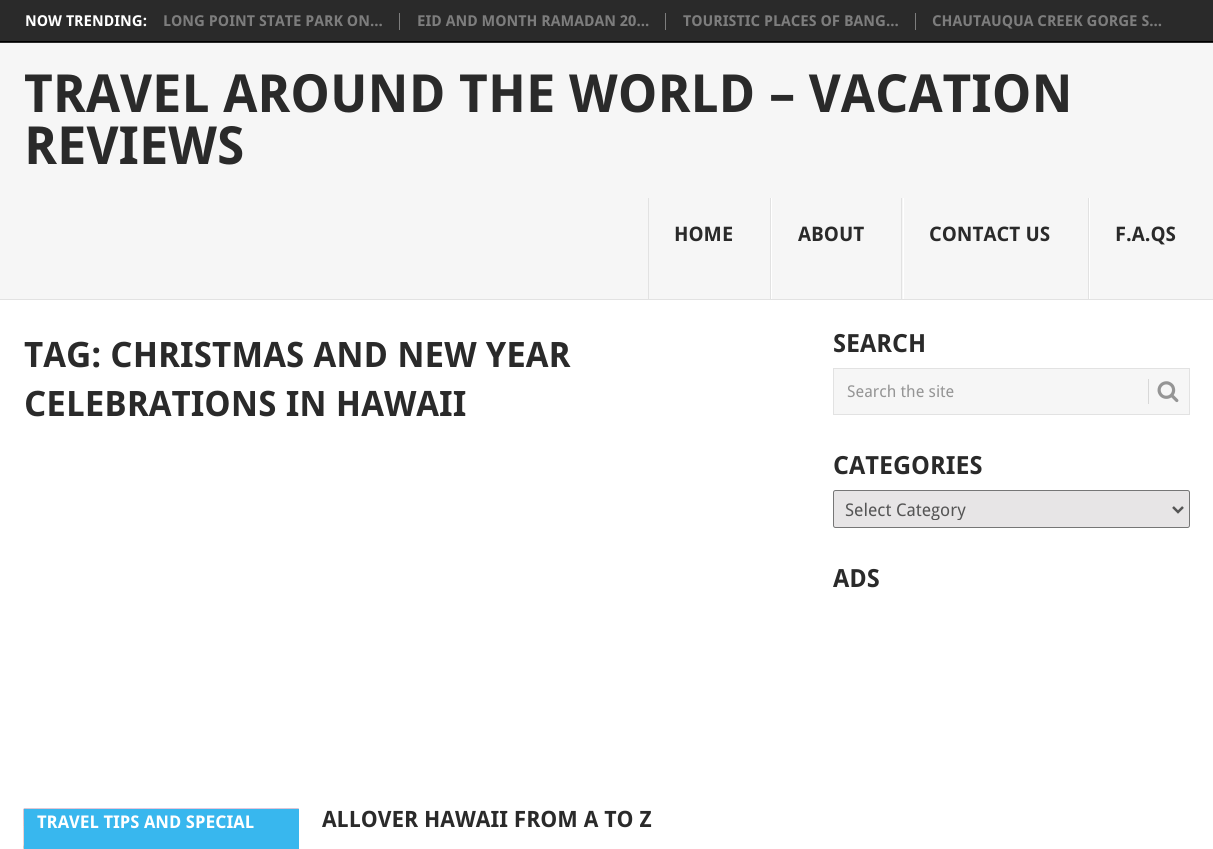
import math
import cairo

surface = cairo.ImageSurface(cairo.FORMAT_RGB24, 1213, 849)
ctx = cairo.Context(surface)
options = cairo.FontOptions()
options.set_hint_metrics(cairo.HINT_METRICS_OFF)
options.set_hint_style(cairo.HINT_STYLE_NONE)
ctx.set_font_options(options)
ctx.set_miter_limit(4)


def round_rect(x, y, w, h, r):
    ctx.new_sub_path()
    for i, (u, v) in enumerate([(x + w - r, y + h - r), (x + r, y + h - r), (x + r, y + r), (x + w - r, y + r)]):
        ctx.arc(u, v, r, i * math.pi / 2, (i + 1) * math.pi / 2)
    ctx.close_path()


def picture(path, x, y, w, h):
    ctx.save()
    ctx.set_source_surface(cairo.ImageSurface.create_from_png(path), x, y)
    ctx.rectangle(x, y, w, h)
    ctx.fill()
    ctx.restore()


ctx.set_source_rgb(1, 1, 1)
ctx.paint()
ctx.set_source_rgb(0.165, 0.165, 0.165)
ctx.rectangle(0, 0, 1213, 43)
ctx.fill()
ctx.set_source_rgb(0, 0, 0)
ctx.rectangle(0, 41, 1213, 1)
ctx.fill()
ctx.select_font_face("Droid Sans", cairo.FONT_SLANT_NORMAL, cairo.FONT_WEIGHT_BOLD)
ctx.set_font_size(15)
ctx.set_source_rgb(1, 1, 1)
ctx.move_to(25, 26)
ctx.show_text("NOW TRENDING:")
ctx.set_source_rgb(0.49, 0.49, 0.49)
ctx.rectangle(399, 13, 1, 17)
ctx.fill()
ctx.move_to(163, 26)
ctx.show_text("LONG POINT STATE PARK ON...")
ctx.rectangle(665, 13, 1, 17)
ctx.fill()
ctx.move_to(417, 26)
ctx.show_text("EID AND MONTH RAMADAN 20...")
ctx.rectangle(915, 13, 1, 17)
ctx.fill()
ctx.move_to(683, 26)
ctx.show_text("TOURISTIC PLACES OF BANG...")
ctx.move_to(932, 26)
ctx.show_text("CHAUTAUQUA CREEK GORGE S...")
ctx.set_source_rgb(0.961, 0.961, 0.961)
ctx.rectangle(0, 43, 1213, 256)
ctx.fill()
ctx.set_font_size(52.5)
ctx.set_source_rgb(0.165, 0.165, 0.165)
ctx.move_to(24, 112)
ctx.show_text("TRAVEL AROUND THE WORLD – VACATION")
ctx.move_to(24, 164)
ctx.show_text("REVIEWS")
ctx.set_source_rgb(0.886, 0.886, 0.886)
ctx.rectangle(770, 198, 1, 102)
ctx.fill()
ctx.rectangle(648, 198, 1, 102)
ctx.fill()
ctx.set_font_size(20)
ctx.set_source_rgb(0.165, 0.165, 0.165)
ctx.move_to(674, 241)
ctx.show_text("HOME")
ctx.set_source_rgb(0.886, 0.886, 0.886)
ctx.rectangle(901, 198, 1, 102)
ctx.fill()
ctx.set_source_rgb(1, 1, 1)
ctx.rectangle(771, 198, 1, 102)
ctx.fill()
ctx.set_source_rgb(0.165, 0.165, 0.165)
ctx.move_to(798, 241)
ctx.show_text("ABOUT")
ctx.set_source_rgb(0.886, 0.886, 0.886)
ctx.rectangle(1088, 198, 1, 102)
ctx.fill()
ctx.set_source_rgb(1, 1, 1)
ctx.rectangle(903, 198, 1, 102)
ctx.fill()
ctx.set_source_rgb(0.165, 0.165, 0.165)
ctx.move_to(929, 241)
ctx.show_text("CONTACT US")
ctx.set_source_rgb(1, 1, 1)
ctx.rectangle(1089, 198, 1, 102)
ctx.fill()
ctx.set_source_rgb(0.165, 0.165, 0.165)
ctx.move_to(1115, 241)
ctx.show_text("F.A.QS")
ctx.set_source_rgb(0.886, 0.886, 0.886)
ctx.rectangle(0, 299, 1213, 1)
ctx.fill()
ctx.set_font_size(35)
ctx.set_source_rgb(0.165, 0.165, 0.165)
ctx.move_to(24, 367)
ctx.show_text("TAG: CHRISTMAS AND NEW YEAR")
ctx.move_to(24, 416)
ctx.show_text("CELEBRATIONS IN HAWAII")
picture("img1.png", 23, 808, 276, 41)
ctx.set_source_rgb(0.22, 0.718, 0.933)
ctx.rectangle(24, 809, 275, 40)
ctx.fill()
ctx.set_font_size(17.5)
ctx.set_source_rgb(1, 1, 1)
ctx.move_to(37, 828)
ctx.show_text("TRAVEL TIPS AND SPECIAL")
ctx.set_font_size(22.5)
ctx.set_source_rgb(0.165, 0.165, 0.165)
ctx.move_to(322, 827)
ctx.show_text("ALLOVER HAWAII FROM A TO Z")
ctx.set_font_size(25)
ctx.move_to(833, 352)
ctx.show_text("SEARCH")
ctx.set_source_rgb(0.961, 0.961, 0.961)
ctx.rectangle(833.5, 368.5, 356, 46)
ctx.fill_preserve()
ctx.set_source_rgb(0.886, 0.886, 0.886)
ctx.set_line_width(1)
ctx.stroke()
ctx.select_font_face("Droid Sans")
ctx.set_font_size(16.25)
ctx.set_source_rgb(0.584, 0.584, 0.584)
ctx.move_to(847, 397)
ctx.show_text("Search the site")
ctx.set_source_rgb(0.847, 0.847, 0.847)
ctx.rectangle(1148, 379, 1, 25)
ctx.fill()
picture("img2.png", 1157, 381, 22, 22)
ctx.select_font_face("Droid Sans", cairo.FONT_SLANT_NORMAL, cairo.FONT_WEIGHT_BOLD)
ctx.set_font_size(25)
ctx.set_source_rgb(0.165, 0.165, 0.165)
ctx.move_to(833, 474)
ctx.show_text("CATEGORIES")
ctx.set_source_rgb(0.906, 0.898, 0.902)
round_rect(833.5, 490.5, 356, 37, 2)
ctx.fill_preserve()
ctx.set_source_rgb(0.463, 0.463, 0.463)
ctx.stroke()
ctx.new_path()
ctx.move_to(1173, 507)
ctx.line_to(1178, 512)
ctx.line_to(1183, 507)
ctx.set_source_rgb(0.333, 0.333, 0.333)
ctx.set_line_width(2.5)
ctx.stroke()
ctx.save()
ctx.rectangle(845, 498, 318, 22)
ctx.clip()
ctx.select_font_face("Droid Sans")
ctx.set_font_size(17.5)
ctx.move_to(845, 516)
ctx.show_text("Select Category")
ctx.restore()
ctx.set_source_rgb(0.165, 0.165, 0.165)
ctx.move_to(833, 587)
ctx.show_text("ADS")
surface.write_to_png("page.png")
